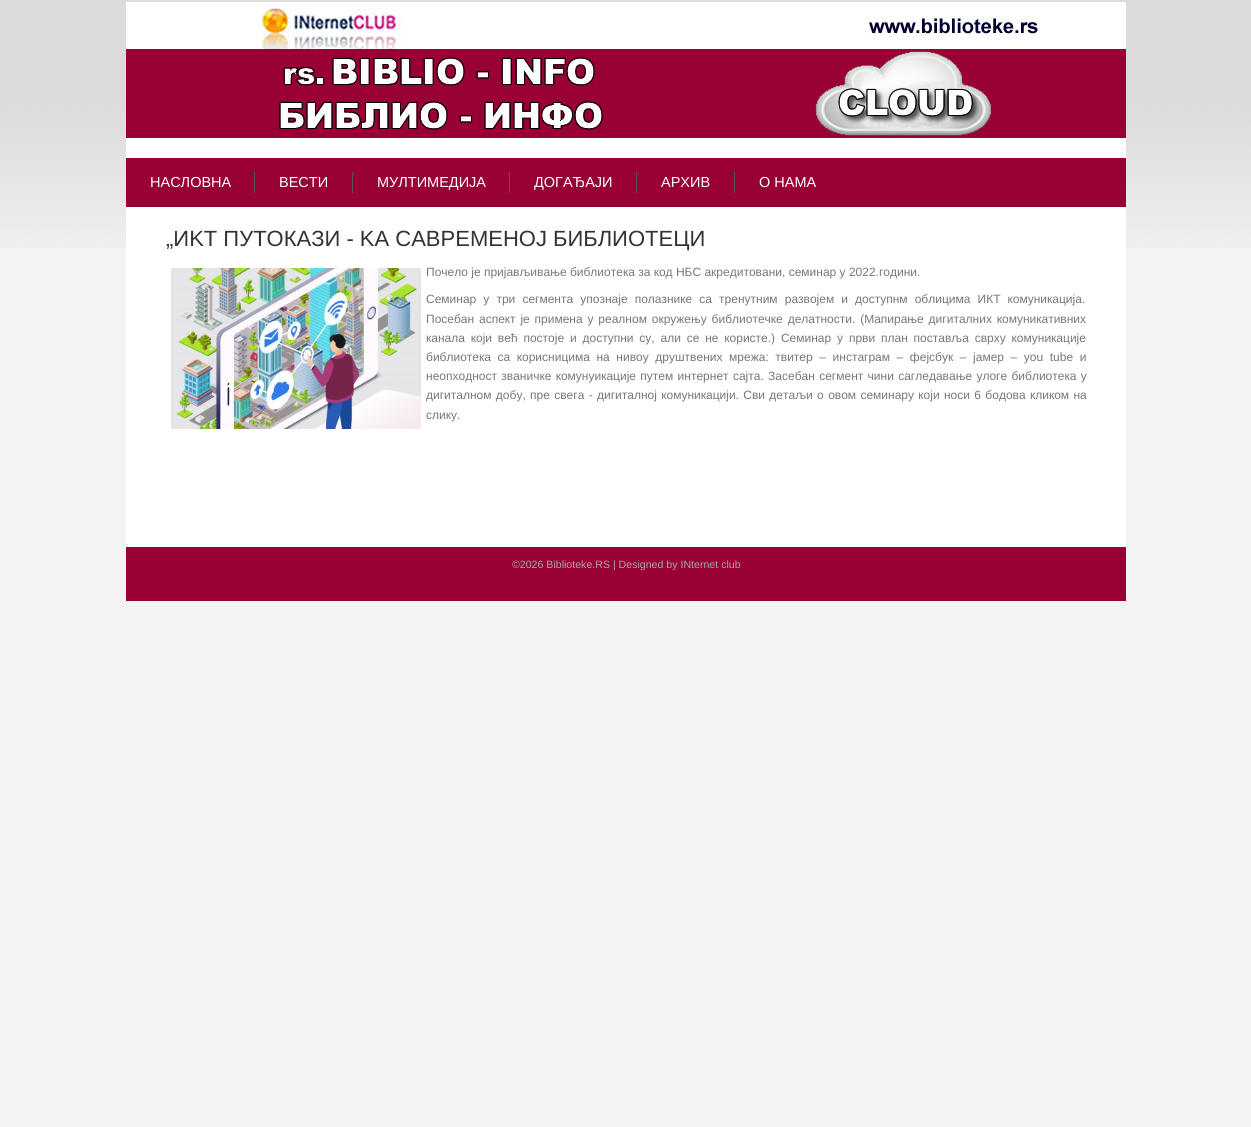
import math
import cairo

surface = cairo.ImageSurface(cairo.FORMAT_RGB24, 1251, 1127)
ctx = cairo.Context(surface)
options = cairo.FontOptions()
options.set_hint_metrics(cairo.HINT_METRICS_OFF)
options.set_hint_style(cairo.HINT_STYLE_NONE)
ctx.set_font_options(options)
ctx.set_miter_limit(4)


def spaced_text(x, y, s, letter, word):
    ctx.move_to(x, y)
    for ch in s:
        ctx.show_text(ch)
        ctx.rel_move_to(letter + word * (ch == ' '), 0)


def picture(path, x, y, w, h):
    ctx.save()
    ctx.set_source_surface(cairo.ImageSurface.create_from_png(path), x, y)
    ctx.rectangle(x, y, w, h)
    ctx.fill()
    ctx.restore()


ctx.set_source_rgb(0.953, 0.953, 0.953)
ctx.paint()
picture("img1.png", 0, 0, 1251, 248)
ctx.set_source_rgb(1, 1, 1)
ctx.rectangle(126, 2, 1000, 156)
ctx.fill()
picture("img2.png", 126, 8, 1000, 130)
ctx.set_source_rgb(0.6, 0.004, 0.204)
ctx.rectangle(126, 158, 1000, 49)
ctx.fill()
ctx.select_font_face("Liberation Sans")
ctx.set_font_size(14.5)
ctx.set_source_rgb(1, 1, 1)
ctx.move_to(150, 187)
ctx.show_text("НАСЛОВНА")
ctx.set_source_rgb(0.337, 0.337, 0.337)
ctx.rectangle(254, 172, 1, 21)
ctx.fill()
ctx.set_source_rgb(1, 1, 1)
ctx.move_to(279, 187)
ctx.show_text("ВЕСТИ")
ctx.set_source_rgb(0.337, 0.337, 0.337)
ctx.rectangle(352, 172, 1, 21)
ctx.fill()
ctx.set_source_rgb(1, 1, 1)
ctx.move_to(377, 187)
ctx.show_text("МУЛТИМЕДИЈА")
ctx.set_source_rgb(0.337, 0.337, 0.337)
ctx.rectangle(509, 172, 1, 21)
ctx.fill()
ctx.set_source_rgb(1, 1, 1)
ctx.move_to(534, 187)
ctx.show_text("ДОГАЂАЈИ")
ctx.set_source_rgb(0.337, 0.337, 0.337)
ctx.rectangle(636, 172, 1, 21)
ctx.fill()
ctx.set_source_rgb(1, 1, 1)
ctx.move_to(661, 187)
ctx.show_text("АРХИВ")
ctx.set_source_rgb(0.337, 0.337, 0.337)
ctx.rectangle(734, 172, 1, 21)
ctx.fill()
ctx.set_source_rgb(1, 1, 1)
ctx.move_to(759, 187)
ctx.show_text("О НАМА")
ctx.rectangle(126, 207, 1000, 340)
ctx.fill()
ctx.set_font_size(22)
ctx.set_source_rgb(0.2, 0.2, 0.2)
ctx.move_to(166, 246)
ctx.show_text("„ИKT ПУТOКАЗИ - KA САВРЕМЕНОЈ БИБЛИОТЕЦИ")
picture("img3.png", 171, 268, 250, 161)
ctx.set_font_size(12)
ctx.set_source_rgb(0.467, 0.467, 0.467)
ctx.move_to(426, 276)
ctx.show_text("Почело је пријављивање библиотека за код НБС акредитовани, семинар у 2022.години.")
spaced_text(426, 303, "Семинар у три сегмента упознаје полазнике са тренутним развојем и доступнм облицима ИКТ комуникација.", 0, 3.75)
spaced_text(426, 323, "Посебан аспект је примена у реалном окружењу библиотечке делатности. (Мапирање дигиталних комуникативних", 0, 1.5)
spaced_text(426, 342, "канала који већ постоје и доступни су, али се не користе.) Семинар у први план поставља сврху комуникацијe", 0, 2.5)
spaced_text(426, 361, "библиотека са корисницима на нивоу друштвених мрежа: твитер – инстаграм – фејсбук – јамер – you tube и", 0, 3.25)
spaced_text(426, 380, "неопходност званичке комунуикације путем интернет сајта. Засебан сегмент чини сагледавање улоге библиотека у", 0, 1)
spaced_text(426, 399, "дигиталном добу, пре свега - дигиталној комуникацији. Сви детаљи о овом семинару који носи 6 бодова кликом на", 0, 1)
ctx.move_to(426, 419)
ctx.show_text("слику.")
ctx.set_source_rgb(0.6, 0.004, 0.204)
ctx.rectangle(126, 547, 1000, 54)
ctx.fill()
ctx.set_font_size(10.6)
ctx.set_source_rgb(0.663, 0.663, 0.663)
ctx.move_to(512, 568)
ctx.show_text("©2026 Biblioteke.RS | Designed by INternet club")
surface.write_to_png("page.png")
